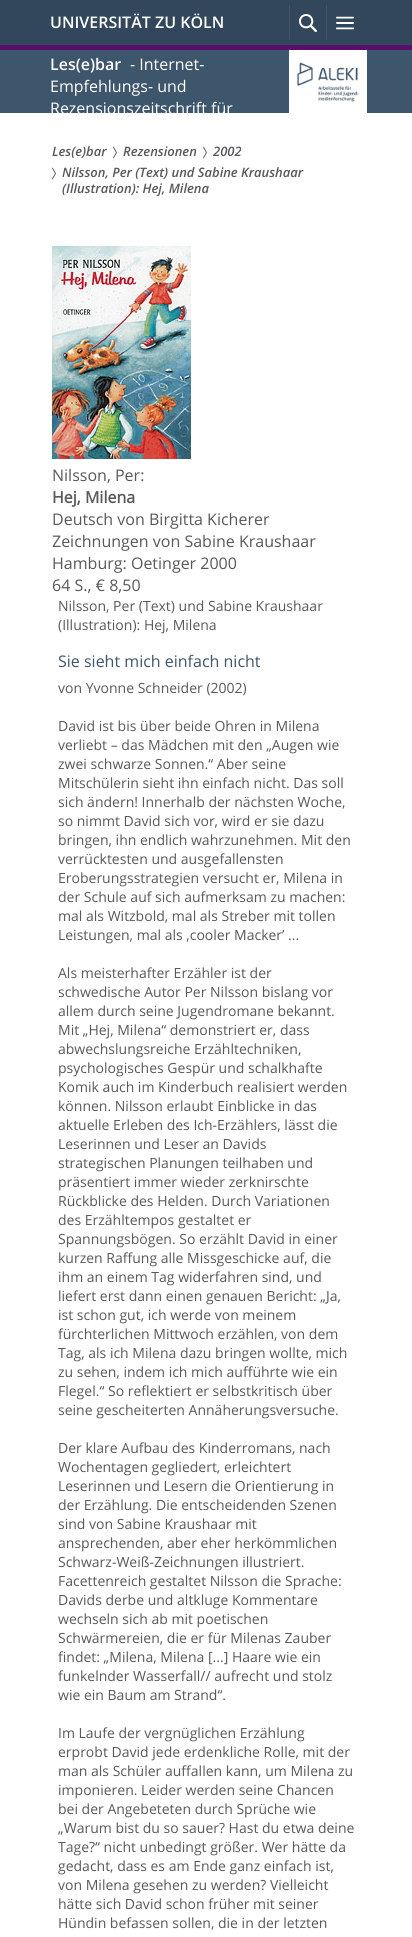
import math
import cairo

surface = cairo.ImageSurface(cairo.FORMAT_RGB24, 412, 1937)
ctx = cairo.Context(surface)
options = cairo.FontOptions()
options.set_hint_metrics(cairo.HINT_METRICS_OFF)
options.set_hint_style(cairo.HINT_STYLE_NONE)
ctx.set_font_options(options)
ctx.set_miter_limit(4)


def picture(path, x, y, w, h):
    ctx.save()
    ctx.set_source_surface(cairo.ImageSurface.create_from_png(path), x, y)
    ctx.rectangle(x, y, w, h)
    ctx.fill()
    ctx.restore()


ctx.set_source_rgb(1, 1, 1)
ctx.paint()
ctx.set_source_rgb(0.243, 0.337, 0.424)
ctx.rectangle(0, 50, 412, 63)
ctx.fill()
ctx.set_source_rgb(0.196, 0.278, 0.357)
ctx.rectangle(0, 0, 412, 45)
ctx.fill()
ctx.set_source_rgb(0.349, 0.059, 0.408)
ctx.rectangle(0, 45, 412, 5)
ctx.fill()
ctx.select_font_face("Open Sans SemiBold")
ctx.set_font_size(16)
ctx.set_source_rgb(1, 1, 1)
ctx.move_to(50, 28)
ctx.show_text("UNIVERSITÄT ZU KÖLN")
ctx.set_source_rgb(0.243, 0.337, 0.424)
ctx.rectangle(289, 5, 1, 35)
ctx.fill()
picture("img1.png", 299, 14, 18, 18)
ctx.rectangle(326, 5, 1, 35)
ctx.fill()
picture("img2.png", 336, 16, 18, 14)
ctx.set_source_rgb(1, 1, 1)
ctx.move_to(50, 70)
ctx.show_text("Les(e)bar")
ctx.select_font_face("Open Sans")
ctx.move_to(130, 70)
ctx.show_text("- Internet-")
ctx.move_to(50, 92)
ctx.show_text("Empfehlungs- und")
ctx.move_to(50, 114)
ctx.show_text("Rezensionszeitschrift für")
ctx.rectangle(289, 50, 78, 63)
ctx.fill()
picture("img3.png", 297, 62, 62, 40)
ctx.select_font_face("Open Sans SemiBold", cairo.FONT_SLANT_ITALIC)
ctx.set_font_size(13)
ctx.set_source_rgb(0.345, 0.349, 0.357)
ctx.move_to(52, 156)
ctx.show_text("Les(e)bar")
picture("img4.png", 113, 146, 4, 13)
ctx.move_to(123, 156)
ctx.show_text("Rezensionen")
picture("img4.png", 203, 146, 4, 13)
ctx.move_to(213, 156)
ctx.show_text("2002")
picture("img4.png", 52, 167, 4, 13)
ctx.move_to(62, 177)
ctx.show_text("Nilsson, Per (Text) und Sabine Kraushaar")
ctx.move_to(62, 193)
ctx.show_text("(Illustration): Hej, Milena")
picture("img5.png", 52, 246, 139, 213)
ctx.select_font_face("Open Sans")
ctx.set_font_size(16)
ctx.move_to(52, 481)
ctx.show_text("Nilsson, Per:")
ctx.select_font_face("Open Sans", cairo.FONT_SLANT_NORMAL, cairo.FONT_WEIGHT_BOLD)
ctx.move_to(52, 503)
ctx.show_text("Hej, Milena")
ctx.select_font_face("Open Sans")
ctx.move_to(52, 525)
ctx.show_text("Deutsch von Birgitta Kicherer")
ctx.move_to(52, 547)
ctx.show_text("Zeichnungen von Sabine Kraushaar")
ctx.move_to(52, 569)
ctx.show_text("Hamburg: Oetinger 2000")
ctx.move_to(52, 591)
ctx.show_text("64 S., € 8,50")
ctx.set_font_size(14)
ctx.move_to(58, 611)
ctx.show_text("Nilsson, Per (Text) und Sabine Kraushaar")
ctx.move_to(58, 630)
ctx.show_text("(Illustration): Hej, Milena")
ctx.set_font_size(16)
ctx.set_source_rgb(0.243, 0.337, 0.424)
ctx.move_to(58, 667)
ctx.show_text("Sie sieht mich einfach nicht")
ctx.set_font_size(14)
ctx.set_source_rgb(0.345, 0.349, 0.357)
ctx.move_to(58, 693)
ctx.show_text("von Yvonne Schneider (2002)")
ctx.move_to(58, 731)
ctx.show_text("David ist bis über beide Ohren in Milena")
ctx.move_to(58, 750)
ctx.show_text("verliebt – das Mädchen mit den „Augen wie")
ctx.move_to(58, 769)
ctx.show_text("zwei schwarze Sonnen.“ Aber seine")
ctx.move_to(58, 788)
ctx.show_text("Mitschülerin sieht ihn einfach nicht. Das soll")
ctx.move_to(58, 807)
ctx.show_text("sich ändern! Innerhalb der nächsten Woche,")
ctx.move_to(58, 826)
ctx.show_text("so nimmt David sich vor, wird er sie dazu")
ctx.move_to(58, 845)
ctx.show_text("bringen, ihn endlich wahrzunehmen. Mit den")
ctx.move_to(58, 864)
ctx.show_text("verrücktesten und ausgefallensten")
ctx.move_to(58, 883)
ctx.show_text("Eroberungsstrategien versucht er, Milena in")
ctx.move_to(58, 902)
ctx.show_text("der Schule auf sich aufmerksam zu machen:")
ctx.move_to(58, 921)
ctx.show_text("mal als Witzbold, mal als Streber mit tollen")
ctx.move_to(58, 940)
ctx.show_text("Leistungen, mal als ‚cooler Macker’ ...")
ctx.move_to(58, 978)
ctx.show_text("Als meisterhafter Erzähler ist der")
ctx.move_to(58, 997)
ctx.show_text("schwedische Autor Per Nilsson bislang vor")
ctx.move_to(58, 1016)
ctx.show_text("allem durch seine Jugendromane bekannt.")
ctx.move_to(58, 1035)
ctx.show_text("Mit „Hej, Milena“ demonstriert er, dass")
ctx.move_to(58, 1054)
ctx.show_text("abwechslungsreiche Erzähltechniken,")
ctx.move_to(58, 1073)
ctx.show_text("psychologisches Gespür und schalkhafte")
ctx.move_to(58, 1092)
ctx.show_text("Komik auch im Kinderbuch realisiert werden")
ctx.move_to(58, 1111)
ctx.show_text("können. Nilsson erlaubt Einblicke in das")
ctx.move_to(58, 1130)
ctx.show_text("aktuelle Erleben des Ich-Erzählers, lässt die")
ctx.move_to(58, 1149)
ctx.show_text("Leserinnen und Leser an Davids")
ctx.move_to(58, 1168)
ctx.show_text("strategischen Planungen teilhaben und")
ctx.move_to(58, 1187)
ctx.show_text("präsentiert immer wieder zerknirschte")
ctx.move_to(58, 1206)
ctx.show_text("Rückblicke des Helden. Durch Variationen")
ctx.move_to(58, 1225)
ctx.show_text("des Erzähltempos gestaltet er")
ctx.move_to(58, 1244)
ctx.show_text("Spannungsbögen. So erzählt David in einer")
ctx.move_to(58, 1263)
ctx.show_text("kurzen Raffung alle Missgeschicke auf, die")
ctx.move_to(58, 1282)
ctx.show_text("ihm an einem Tag widerfahren sind, und")
ctx.move_to(58, 1301)
ctx.show_text("liefert erst dann einen genauen Bericht: „Ja,")
ctx.move_to(58, 1320)
ctx.show_text("ist schon gut, ich werde von meinem")
ctx.move_to(58, 1339)
ctx.show_text("fürchterlichen Mittwoch erzählen, von dem")
ctx.move_to(58, 1358)
ctx.show_text("Tag, als ich Milena dazu bringen wollte, mich")
ctx.move_to(58, 1377)
ctx.show_text("zu sehen, indem ich mich aufführte wie ein")
ctx.move_to(58, 1396)
ctx.show_text("Flegel.“ So reflektiert er selbstkritisch über")
ctx.move_to(58, 1415)
ctx.show_text("seine gescheiterten Annäherungsversuche.")
ctx.move_to(58, 1453)
ctx.show_text("Der klare Aufbau des Kinderromans, nach")
ctx.move_to(58, 1472)
ctx.show_text("Wochentagen gegliedert, erleichtert")
ctx.move_to(58, 1491)
ctx.show_text("Leserinnen und Lesern die Orientierung in")
ctx.move_to(58, 1510)
ctx.show_text("der Erzählung. Die entscheidenden Szenen")
ctx.move_to(58, 1529)
ctx.show_text("sind von Sabine Kraushaar mit")
ctx.move_to(58, 1548)
ctx.show_text("ansprechenden, aber eher herkömmlichen")
ctx.move_to(58, 1567)
ctx.show_text("Schwarz-Weiß-Zeichnungen illustriert.")
ctx.move_to(58, 1586)
ctx.show_text("Facettenreich gestaltet Nilsson die Sprache:")
ctx.move_to(58, 1605)
ctx.show_text("Davids derbe und altkluge Kommentare")
ctx.move_to(58, 1624)
ctx.show_text("wechseln sich ab mit poetischen")
ctx.move_to(58, 1643)
ctx.show_text("Schwärmereien, die er für Milenas Zauber")
ctx.move_to(58, 1662)
ctx.show_text("findet: „Milena, Milena [...] Haare wie ein")
ctx.move_to(58, 1681)
ctx.show_text("funkelnder Wasserfall// aufrecht und stolz")
ctx.move_to(58, 1700)
ctx.show_text("wie ein Baum am Strand“.")
ctx.move_to(58, 1738)
ctx.show_text("Im Laufe der vergnüglichen Erzählung")
ctx.move_to(58, 1757)
ctx.show_text("erprobt David jede erdenkliche Rolle, mit der")
ctx.move_to(58, 1776)
ctx.show_text("man als Schüler auffallen kann, um Milena zu")
ctx.move_to(58, 1795)
ctx.show_text("imponieren. Leider werden seine Chancen")
ctx.move_to(58, 1814)
ctx.show_text("bei der Angebeteten durch Sprüche wie")
ctx.move_to(58, 1833)
ctx.show_text("„Warum bist du so sauer? Hast du etwa deine")
ctx.move_to(58, 1852)
ctx.show_text("Tage?“ nicht unbedingt größer. Wer hätte da")
ctx.move_to(58, 1871)
ctx.show_text("gedacht, dass es am Ende ganz einfach ist,")
ctx.move_to(58, 1890)
ctx.show_text("von Milena gesehen zu werden? Vielleicht")
ctx.move_to(58, 1909)
ctx.show_text("hätte sich David schon früher mit seiner")
ctx.move_to(58, 1928)
ctx.show_text("Hündin befassen sollen, die in der letzten")
surface.write_to_png("page.png")
